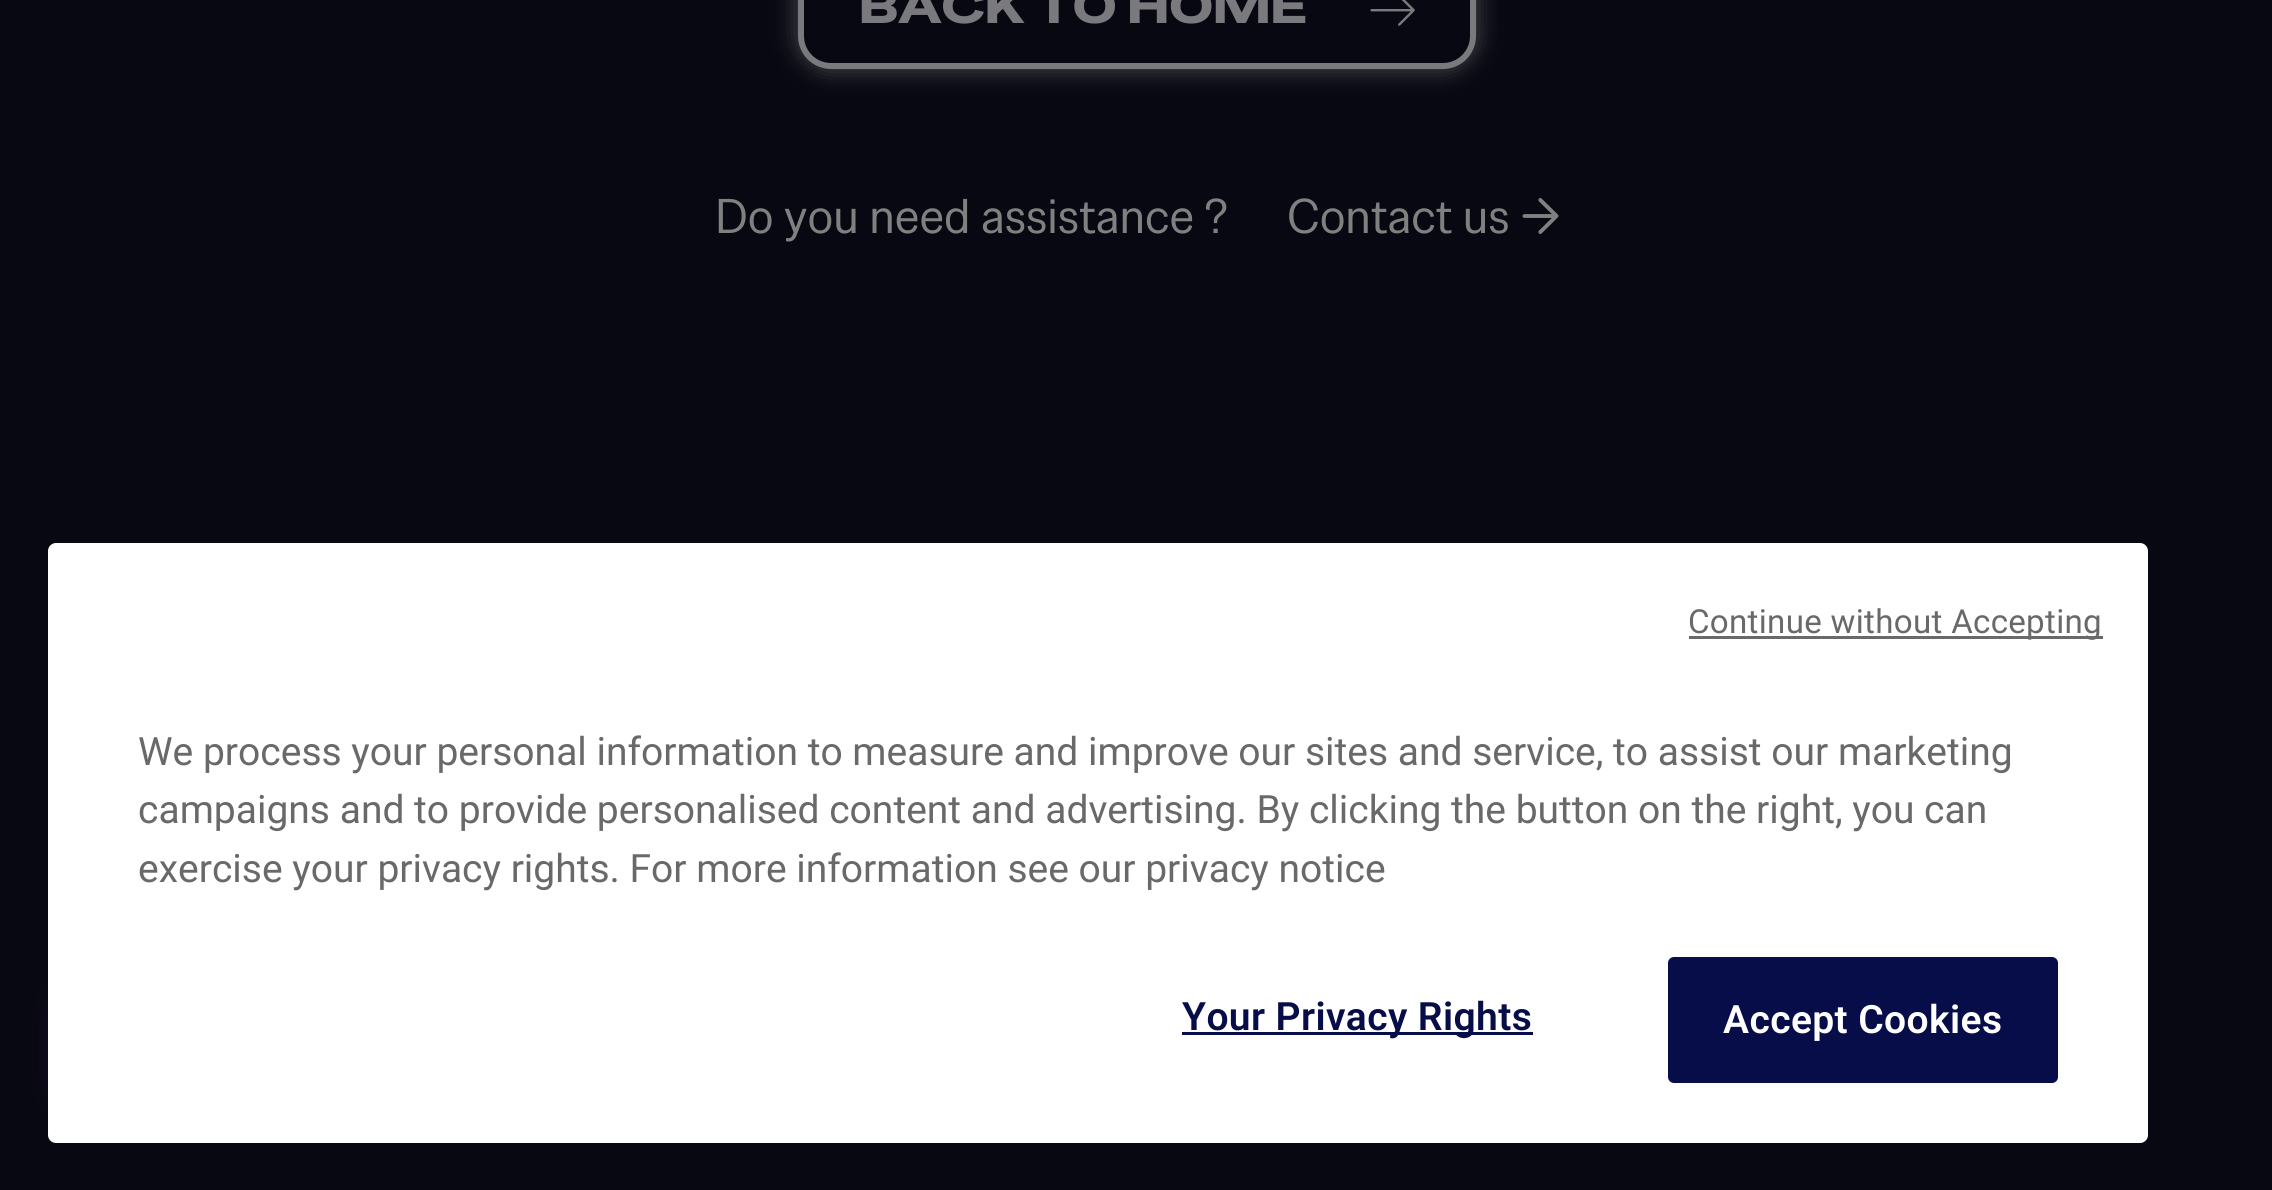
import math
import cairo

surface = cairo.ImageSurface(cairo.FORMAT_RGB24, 2272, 1190)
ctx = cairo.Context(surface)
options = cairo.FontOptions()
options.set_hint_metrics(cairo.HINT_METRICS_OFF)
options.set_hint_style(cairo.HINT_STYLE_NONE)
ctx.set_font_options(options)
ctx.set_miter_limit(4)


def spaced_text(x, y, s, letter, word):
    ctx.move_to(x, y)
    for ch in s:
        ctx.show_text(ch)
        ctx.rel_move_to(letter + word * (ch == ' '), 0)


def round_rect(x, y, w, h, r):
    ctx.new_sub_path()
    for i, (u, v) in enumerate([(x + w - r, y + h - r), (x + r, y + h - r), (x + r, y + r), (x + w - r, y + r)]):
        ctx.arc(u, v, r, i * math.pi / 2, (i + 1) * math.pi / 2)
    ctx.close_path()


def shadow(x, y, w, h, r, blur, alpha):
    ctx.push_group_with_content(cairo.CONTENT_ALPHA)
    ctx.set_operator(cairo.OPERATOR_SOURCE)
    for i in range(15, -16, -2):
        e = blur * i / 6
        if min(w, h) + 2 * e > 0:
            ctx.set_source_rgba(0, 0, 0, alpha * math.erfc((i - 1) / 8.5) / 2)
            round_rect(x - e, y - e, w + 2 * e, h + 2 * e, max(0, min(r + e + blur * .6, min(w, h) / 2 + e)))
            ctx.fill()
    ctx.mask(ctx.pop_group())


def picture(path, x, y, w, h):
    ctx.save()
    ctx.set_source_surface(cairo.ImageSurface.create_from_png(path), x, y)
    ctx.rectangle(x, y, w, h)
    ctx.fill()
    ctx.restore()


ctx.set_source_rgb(0.031, 0.035, 0.067)
ctx.paint()
ctx.set_source_rgb(0.502, 0.502, 0.502)
shadow(795, -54, 684, 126, 36, 10.5, 0.48)
ctx.set_source_rgb(0.031, 0.035, 0.067)
round_rect(801, -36, 672, 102, 30)
ctx.fill_preserve()
ctx.set_source_rgb(0.478, 0.478, 0.494)
ctx.set_line_width(6)
ctx.stroke()
ctx.select_font_face("Special Gothic Expanded One")
ctx.set_font_size(48)
ctx.move_to(859, 23)
ctx.show_text("BACK TO HOME")
picture("img1.png", 1370, 0, 45, 26)
ctx.select_font_face("Special Gothic")
ctx.set_source_rgb(0.502, 0.502, 0.502)
ctx.move_to(715, 233)
ctx.show_text("Do you need assistance ?")
ctx.move_to(1287, 233)
ctx.show_text("Contact us")
picture("img2.png", 1522, 198, 37, 36)
ctx.set_source_rgb(0.114, 0.059, 0.176)
shadow(54, 978, 648, 141, 39, 12.5, 1)
ctx.set_source_rgb(1, 1, 1)
round_rect(48, 543, 2100, 600, 8)
ctx.fill()
ctx.set_source_rgb(0.412, 0.412, 0.412)
ctx.rectangle(1689, 636, 414, 3)
ctx.fill()
ctx.select_font_face("Roboto")
ctx.set_font_size(33.1)
spaced_text(1688, 633, "Continue without Accepting", 0.3, 0)
ctx.set_font_size(39)
ctx.move_to(138, 765)
ctx.show_text("We process your personal information to measure and improve our sites and service, to assist our marketing")
ctx.move_to(138, 823)
ctx.show_text("campaigns and to provide personalised content and advertising. By clicking the button on the right, you can")
ctx.move_to(138, 882)
ctx.show_text("exercise your privacy rights. For more information see our privacy notice")
ctx.set_source_rgb(0.031, 0.051, 0.286)
ctx.rectangle(1182, 1032, 351, 3)
ctx.fill()
ctx.select_font_face("Roboto SemiBold")
spaced_text(1182, 1030, "Your Privacy Rights", 0.4, 0)
round_rect(1669.5, 958.5, 387, 123, 4.5)
ctx.fill_preserve()
ctx.set_line_width(3)
ctx.stroke()
ctx.set_source_rgb(1, 1, 1)
spaced_text(1723, 1033, "Accept Cookies", 0.4, 0)
surface.write_to_png("page.png")
